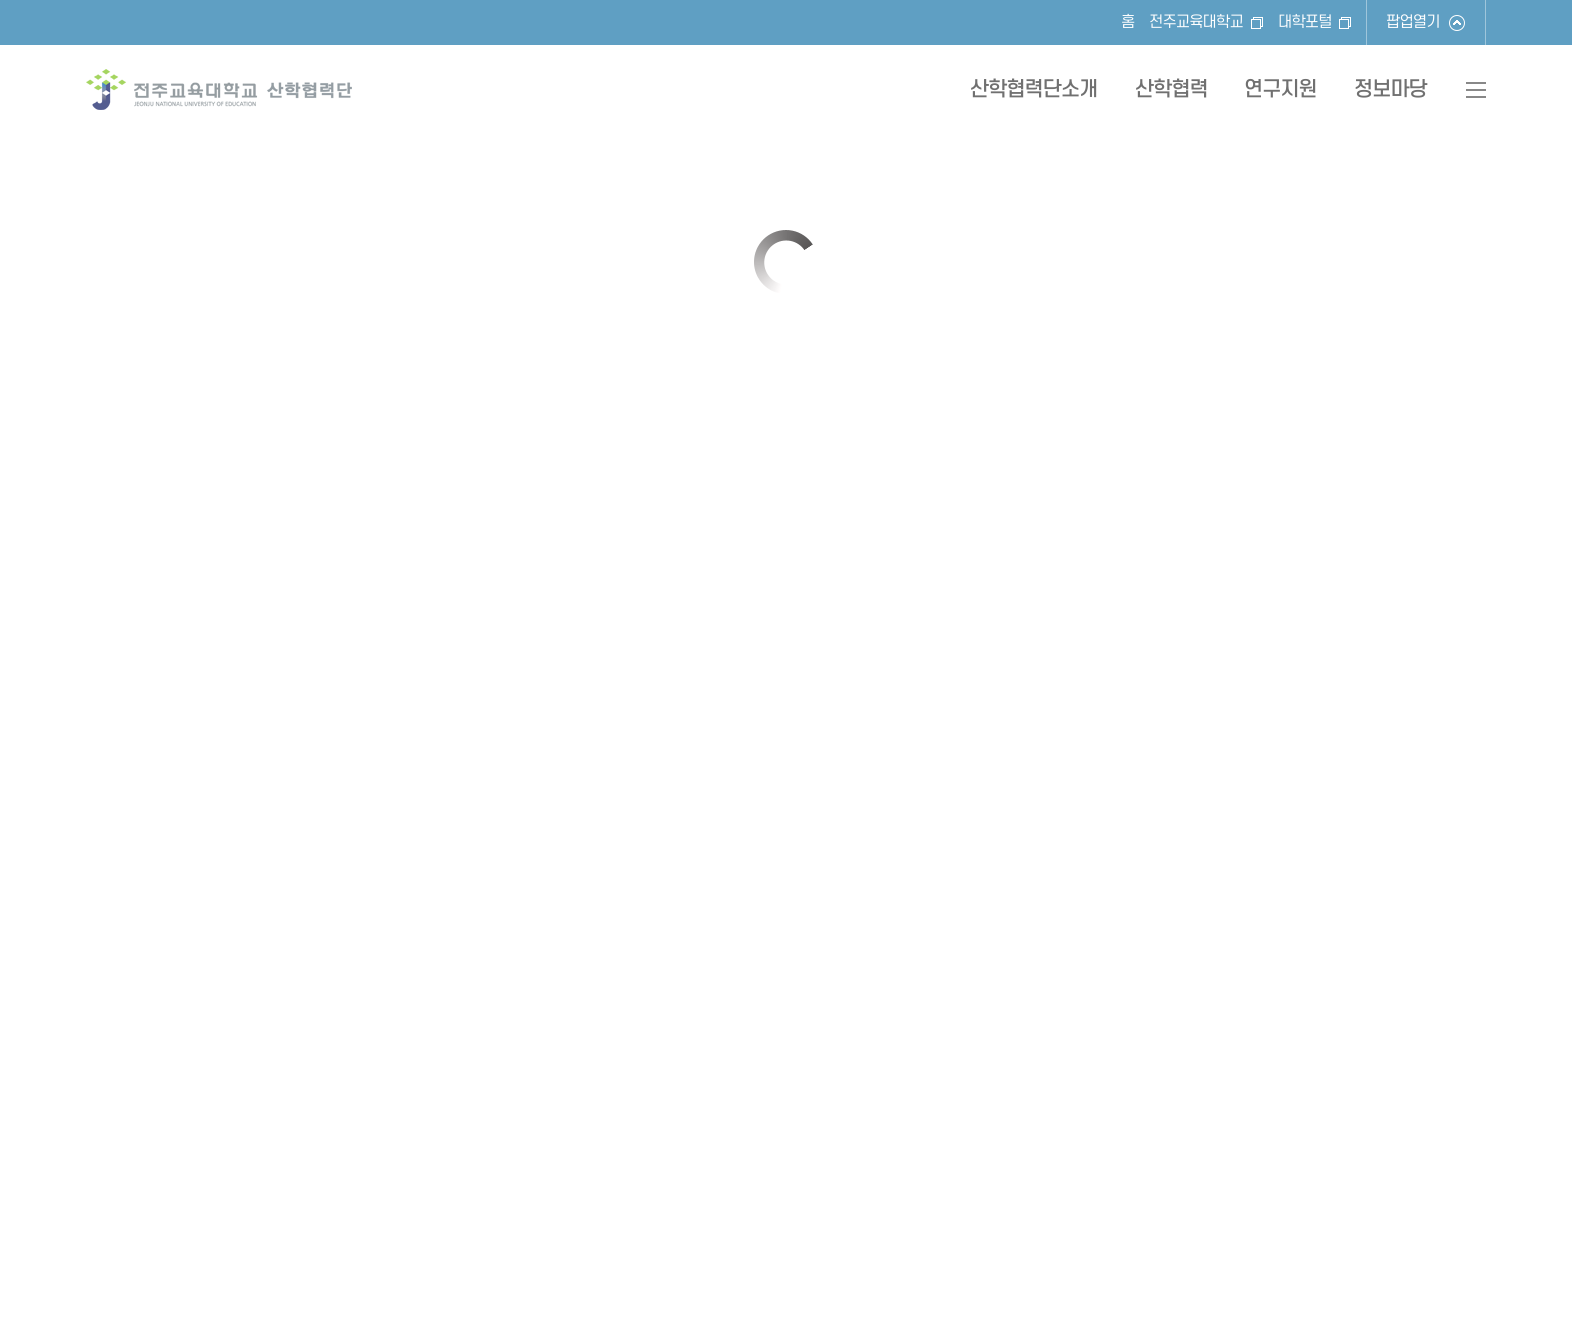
import math
import cairo

surface = cairo.ImageSurface(cairo.FORMAT_RGB24, 1572, 1344)
ctx = cairo.Context(surface)
options = cairo.FontOptions()
options.set_hint_metrics(cairo.HINT_METRICS_OFF)
options.set_hint_style(cairo.HINT_STYLE_NONE)
ctx.set_font_options(options)
ctx.set_miter_limit(4)


def spaced_text(x, y, s, letter, word):
    ctx.move_to(x, y)
    for ch in s:
        ctx.show_text(ch)
        ctx.rel_move_to(letter + word * (ch == ' '), 0)


def picture(path, x, y, w, h):
    ctx.save()
    ctx.set_source_surface(cairo.ImageSurface.create_from_png(path), x, y)
    ctx.rectangle(x, y, w, h)
    ctx.fill()
    ctx.restore()


ctx.set_source_rgb(1, 1, 1)
ctx.paint()
ctx.set_source_rgb(0.373, 0.624, 0.765)
ctx.rectangle(0, 0, 1572, 45)
ctx.fill()
ctx.select_font_face("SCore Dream")
ctx.set_font_size(15)
ctx.set_source_rgb(1, 1, 1)
spaced_text(1121, 27, "홈", -1, 0)
spaced_text(1149, 27, "전주교육대학교", -1, 0)
picture("img1.png", 1251, 17, 12, 12)
spaced_text(1278, 27, "대학포털", -1, 0)
picture("img1.png", 1339, 17, 12, 12)
ctx.set_source_rgb(0.624, 0.776, 0.859)
ctx.rectangle(1485, 0, 1, 45)
ctx.fill()
ctx.rectangle(1366, 0, 1, 45)
ctx.fill()
ctx.set_source_rgb(1, 1, 1)
spaced_text(1386, 27, "팝업열기", -1, 0)
picture("img2.png", 1453, 20, 8, 5)
ctx.arc(1457, 23, 7.5, 0, 2 * math.pi)
ctx.set_line_width(1)
ctx.stroke()
picture("img3.png", 86, 69, 266, 41)
ctx.select_font_face("SCore Dream Medium")
ctx.set_font_size(20)
ctx.set_source_rgb(0.439, 0.439, 0.439)
spaced_text(970, 96, "산학협력단소개", -1, 0)
spaced_text(1135, 96, "산학협력", -1, 0)
spaced_text(1244, 96, "연구지원", -1, 0)
spaced_text(1354, 96, "정보마당", -1, 0)
picture("img4.png", 1466, 82, 20, 16)
picture("img5.png", 754, 230, 59, 63)
surface.write_to_png("page.png")
